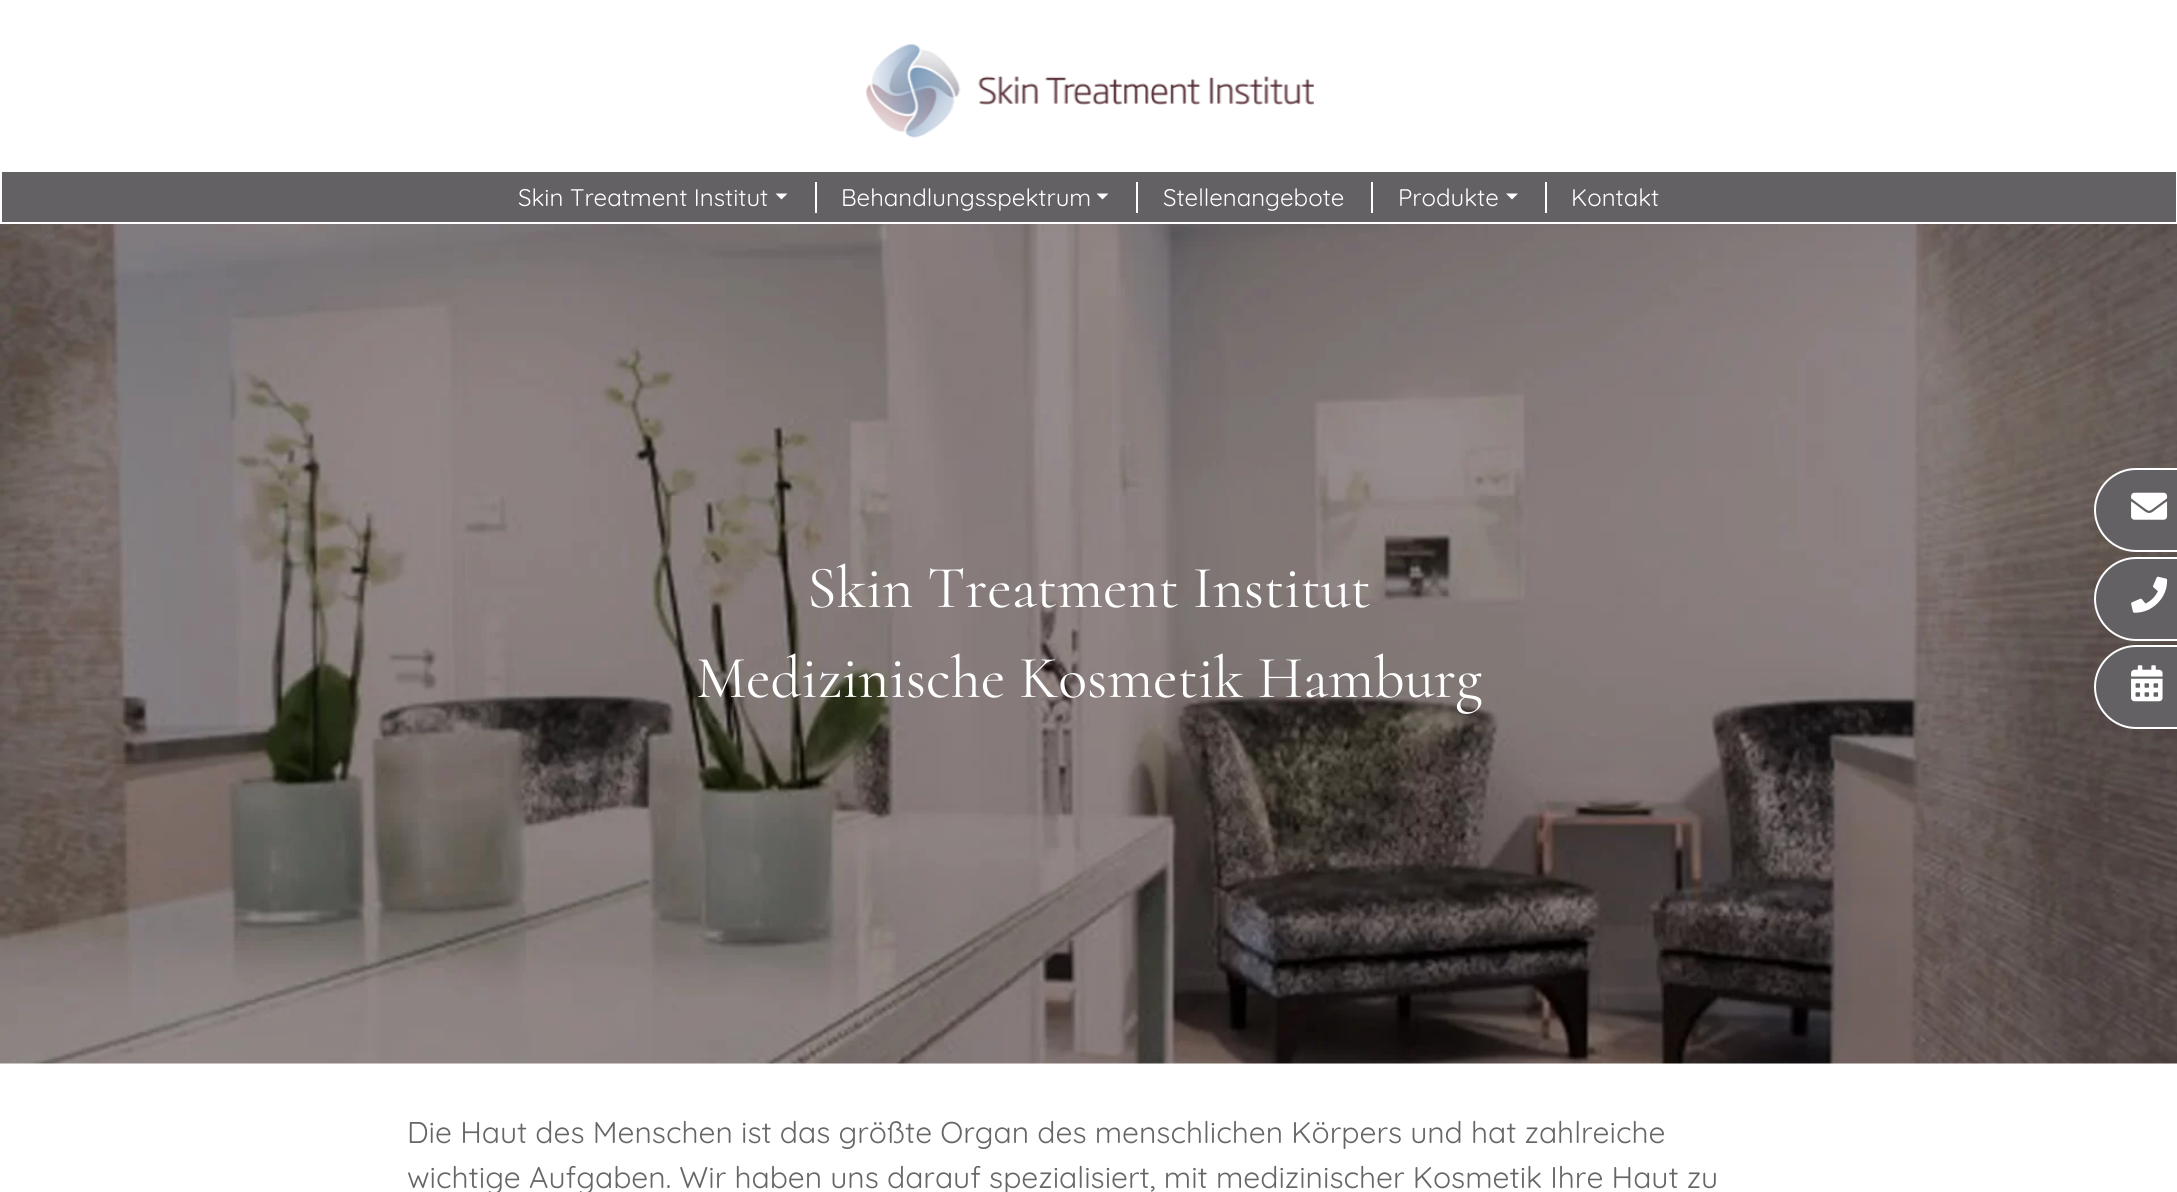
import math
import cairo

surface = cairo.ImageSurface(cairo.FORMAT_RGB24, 2177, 1192)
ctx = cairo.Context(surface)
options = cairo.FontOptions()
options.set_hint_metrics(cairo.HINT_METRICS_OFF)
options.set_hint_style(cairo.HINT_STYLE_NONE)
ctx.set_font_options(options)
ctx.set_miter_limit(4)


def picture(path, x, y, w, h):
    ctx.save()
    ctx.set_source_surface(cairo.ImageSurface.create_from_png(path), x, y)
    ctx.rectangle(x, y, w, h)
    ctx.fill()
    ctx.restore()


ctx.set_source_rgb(1, 1, 1)
ctx.paint()
picture("img1.png", 866, 44, 448, 94)
ctx.set_source_rgb(0.392, 0.38, 0.392)
ctx.rectangle(2, 172, 2174, 50)
ctx.fill()
ctx.select_font_face("Quicksand")
ctx.set_font_size(24)
ctx.set_source_rgb(1, 1, 1)
ctx.move_to(518, 206)
ctx.show_text("Skin Treatment Institut")
ctx.new_path()
ctx.move_to(775.5, 193.5)
ctx.line_to(787.5, 193.5)
ctx.line_to(781.5, 199.5)
ctx.close_path()
ctx.fill()
ctx.rectangle(815, 182, 2, 31)
ctx.fill()
ctx.move_to(841, 206)
ctx.show_text("Behandlungsspektrum")
ctx.new_path()
ctx.move_to(1096.5, 193.5)
ctx.line_to(1108.5, 193.5)
ctx.line_to(1102.5, 199.5)
ctx.close_path()
ctx.fill()
ctx.rectangle(1136, 182, 2, 31)
ctx.fill()
ctx.move_to(1163, 206)
ctx.show_text("Stellenangebote")
ctx.rectangle(1371, 182, 2, 31)
ctx.fill()
ctx.move_to(1398, 206)
ctx.show_text("Produkte")
ctx.new_path()
ctx.move_to(1506, 193.5)
ctx.line_to(1518, 193.5)
ctx.line_to(1512, 199.5)
ctx.close_path()
ctx.fill()
ctx.rectangle(1545, 182, 2, 31)
ctx.fill()
ctx.move_to(1571, 206)
ctx.show_text("Kontakt")
picture("img2.png", 0, 224, 2177, 840)
ctx.select_font_face("Cormorant")
ctx.set_font_size(60)
ctx.move_to(807, 607)
ctx.show_text("Skin Treatment Institut")
ctx.move_to(696, 697)
ctx.show_text("Medizinische Kosmetik Hamburg")
ctx.select_font_face("Quicksand")
ctx.set_font_size(30)
ctx.set_source_rgb(0.4, 0.4, 0.4)
ctx.move_to(407, 1143)
ctx.show_text("Die Haut des Menschen ist das größte Organ des menschlichen Körpers und hat zahlreiche")
ctx.move_to(407, 1188)
ctx.show_text("wichtige Aufgaben. Wir haben uns darauf spezialisiert, mit medizinischer Kosmetik Ihre Haut zu")
ctx.set_source_rgb(0.392, 0.38, 0.392)
ctx.new_path()
ctx.move_to(2136, 469)
ctx.line_to(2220, 469)
ctx.line_to(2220, 551)
ctx.line_to(2136, 551)
ctx.curve_to(2113.5, 551, 2095, 532.5, 2095, 510)
ctx.curve_to(2095, 487.5, 2113.5, 469, 2136, 469)
ctx.close_path()
ctx.fill_preserve()
ctx.set_source_rgb(1, 1, 1)
ctx.stroke()
picture("img3.png", 2131, 492, 37, 28)
ctx.set_source_rgb(0.392, 0.38, 0.392)
ctx.new_path()
ctx.move_to(2136, 558)
ctx.line_to(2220, 558)
ctx.line_to(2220, 640)
ctx.line_to(2136, 640)
ctx.curve_to(2113.5, 640, 2095, 621.5, 2095, 599)
ctx.curve_to(2095, 576.5, 2113.5, 558, 2136, 558)
ctx.close_path()
ctx.fill_preserve()
ctx.set_source_rgb(1, 1, 1)
ctx.stroke()
picture("img4.png", 2131, 576, 37, 37)
ctx.set_source_rgb(0.392, 0.38, 0.392)
ctx.new_path()
ctx.move_to(2136, 646)
ctx.line_to(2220, 646)
ctx.line_to(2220, 728)
ctx.line_to(2136, 728)
ctx.curve_to(2113.5, 728, 2095, 709.5, 2095, 687)
ctx.curve_to(2095, 664.5, 2113.5, 646, 2136, 646)
ctx.close_path()
ctx.fill_preserve()
ctx.set_source_rgb(1, 1, 1)
ctx.stroke()
picture("img5.png", 2131, 665, 32, 37)
surface.write_to_png("page.png")
